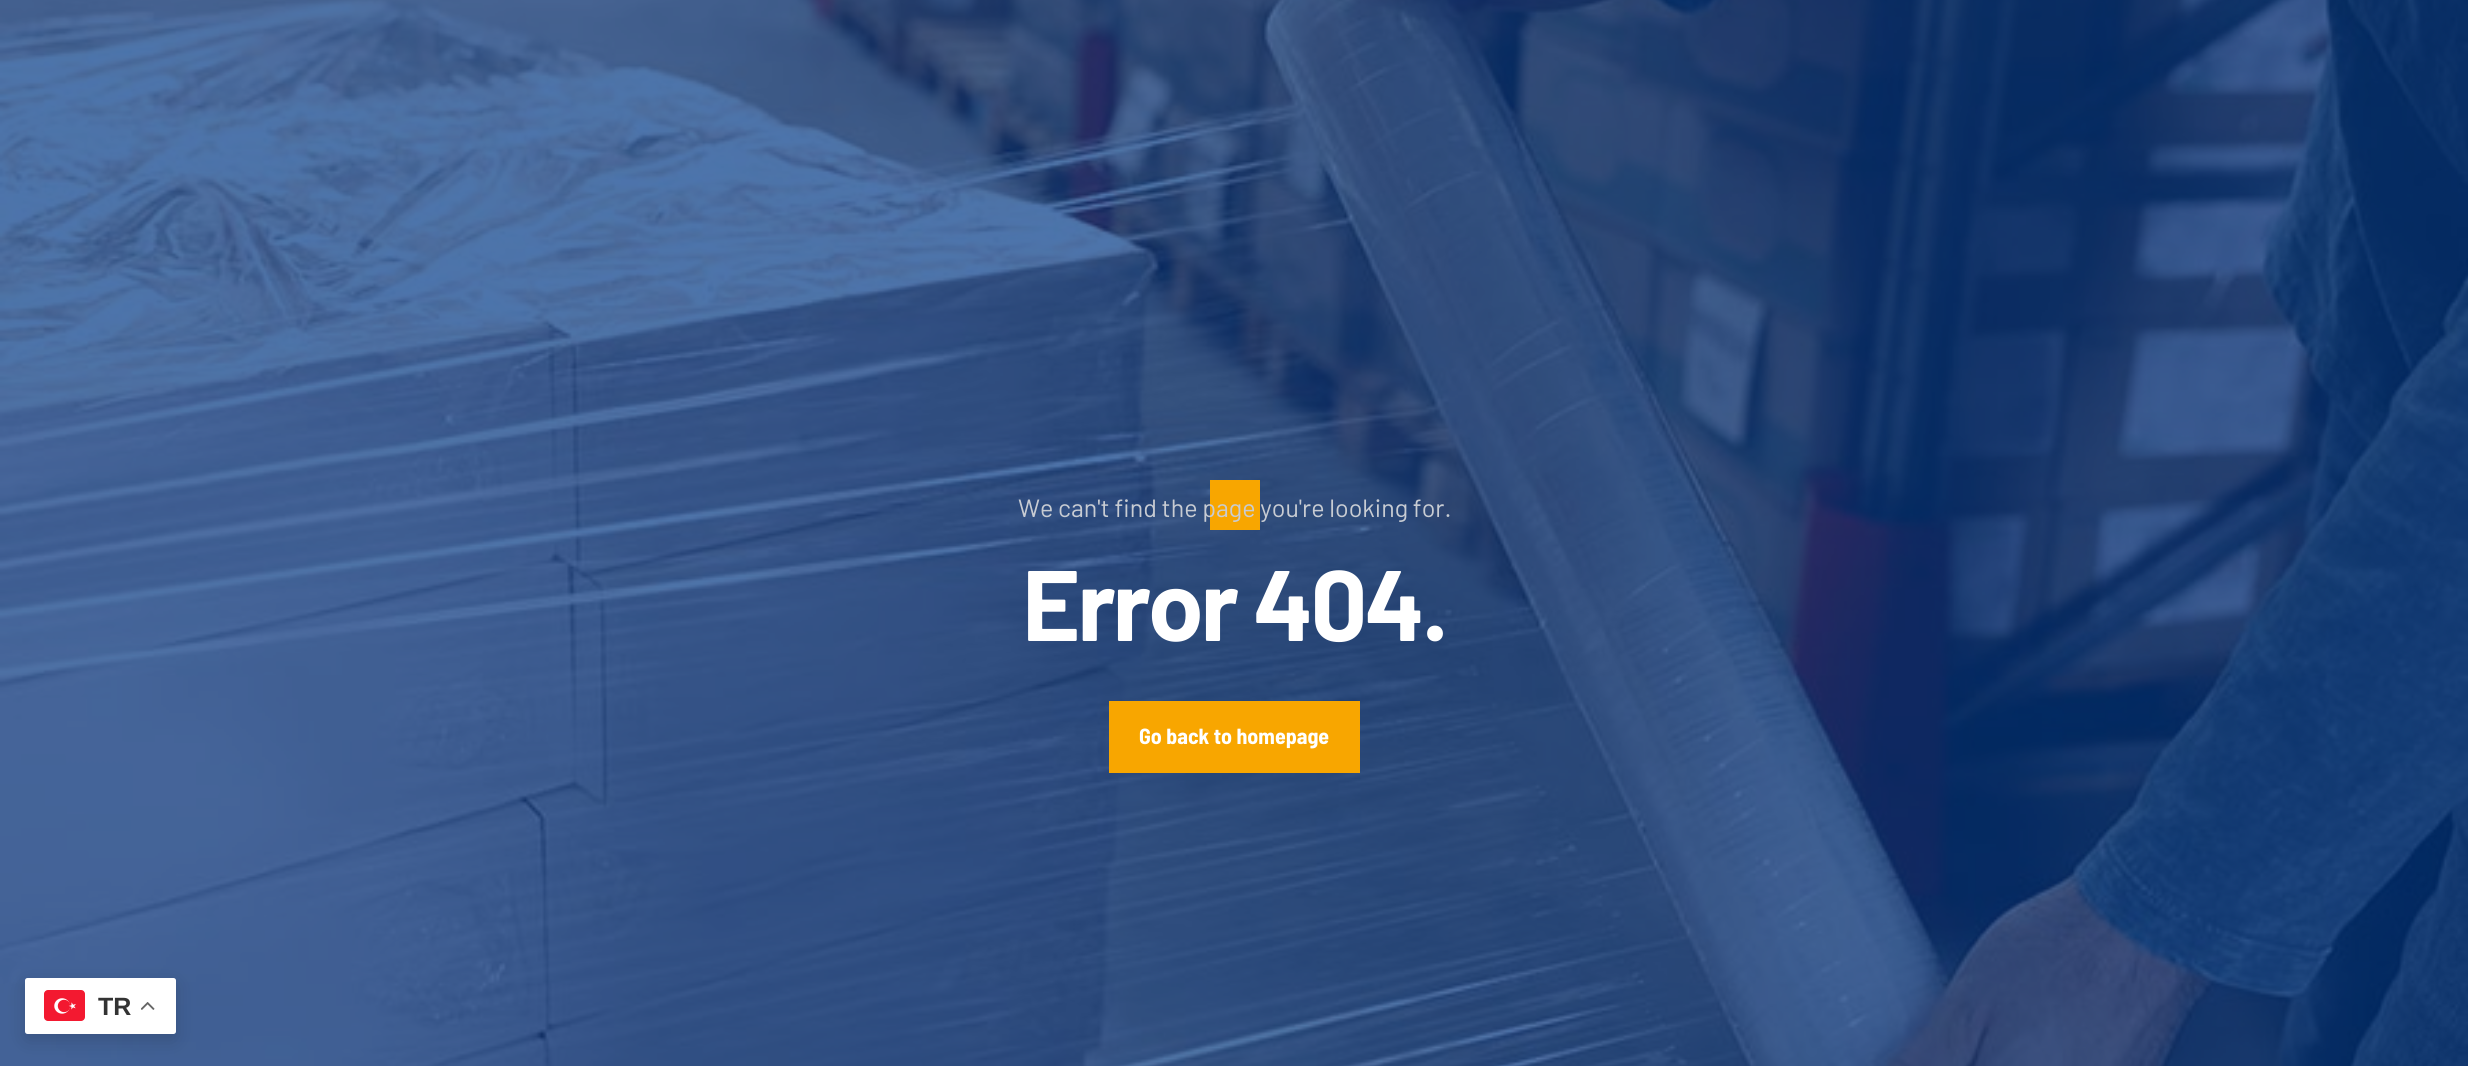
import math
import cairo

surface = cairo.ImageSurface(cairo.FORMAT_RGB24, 2468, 1066)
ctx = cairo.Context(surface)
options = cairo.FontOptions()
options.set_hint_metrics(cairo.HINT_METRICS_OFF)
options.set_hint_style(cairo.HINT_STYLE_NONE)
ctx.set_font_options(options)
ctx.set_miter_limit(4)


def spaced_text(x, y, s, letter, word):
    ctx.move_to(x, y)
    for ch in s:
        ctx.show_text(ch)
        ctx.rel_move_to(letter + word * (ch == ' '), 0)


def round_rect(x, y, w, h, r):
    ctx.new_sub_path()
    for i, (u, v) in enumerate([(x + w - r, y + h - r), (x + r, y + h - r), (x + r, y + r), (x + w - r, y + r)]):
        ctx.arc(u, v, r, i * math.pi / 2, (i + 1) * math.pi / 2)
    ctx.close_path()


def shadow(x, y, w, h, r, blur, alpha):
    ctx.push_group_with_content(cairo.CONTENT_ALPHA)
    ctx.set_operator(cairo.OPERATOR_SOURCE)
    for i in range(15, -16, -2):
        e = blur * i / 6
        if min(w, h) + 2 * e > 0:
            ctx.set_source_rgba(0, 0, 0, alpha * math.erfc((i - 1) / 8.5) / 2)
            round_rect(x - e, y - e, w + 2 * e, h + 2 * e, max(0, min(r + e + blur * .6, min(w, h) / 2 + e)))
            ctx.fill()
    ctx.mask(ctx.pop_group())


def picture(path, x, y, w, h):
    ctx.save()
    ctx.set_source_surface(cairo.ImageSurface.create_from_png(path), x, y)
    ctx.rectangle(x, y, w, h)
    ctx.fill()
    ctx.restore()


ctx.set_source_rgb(1, 1, 1)
ctx.paint()
picture("img1.png", 0, 0, 2468, 1066)
ctx.set_source_rgb(0.969, 0.651, 0)
ctx.rectangle(1210, 480, 50, 50)
ctx.fill()
ctx.select_font_face("Barlow")
ctx.set_font_size(25)
ctx.set_source_rgb(0.784, 0.8, 0.827)
spaced_text(1018, 517, "We can't find the page you're looking for.", 0, -0.25)
ctx.select_font_face("Barlow", cairo.FONT_SLANT_NORMAL, cairo.FONT_WEIGHT_BOLD)
ctx.set_font_size(100)
ctx.set_source_rgb(1, 1, 1)
spaced_text(1022, 641, "Error 404.", -3, 0)
ctx.set_source_rgb(0.969, 0.651, 0)
ctx.rectangle(1109, 701, 251, 72)
ctx.fill()
ctx.select_font_face("Barlow Semi Condensed", cairo.FONT_SLANT_NORMAL, cairo.FONT_WEIGHT_BOLD)
ctx.set_font_size(21.9)
ctx.set_source_rgb(1, 1, 1)
ctx.move_to(1139, 744)
ctx.show_text("Go back to homepage")
ctx.set_source_rgb(0, 0, 0)
shadow(25, 984, 151, 56, 2.5, 9.5, 0.15)
ctx.set_source_rgb(1, 1, 1)
round_rect(25, 978, 151, 56, 2.5)
ctx.fill()
picture("img2.png", 44, 990, 41, 31)
ctx.select_font_face("Liberation Sans", cairo.FONT_SLANT_NORMAL, cairo.FONT_WEIGHT_BOLD)
ctx.set_font_size(25)
ctx.set_source_rgb(0.2, 0.2, 0.2)
ctx.move_to(98, 1015)
ctx.show_text("TR")
picture("img3.png", 141, 1002, 14, 8)
surface.write_to_png("page.png")
